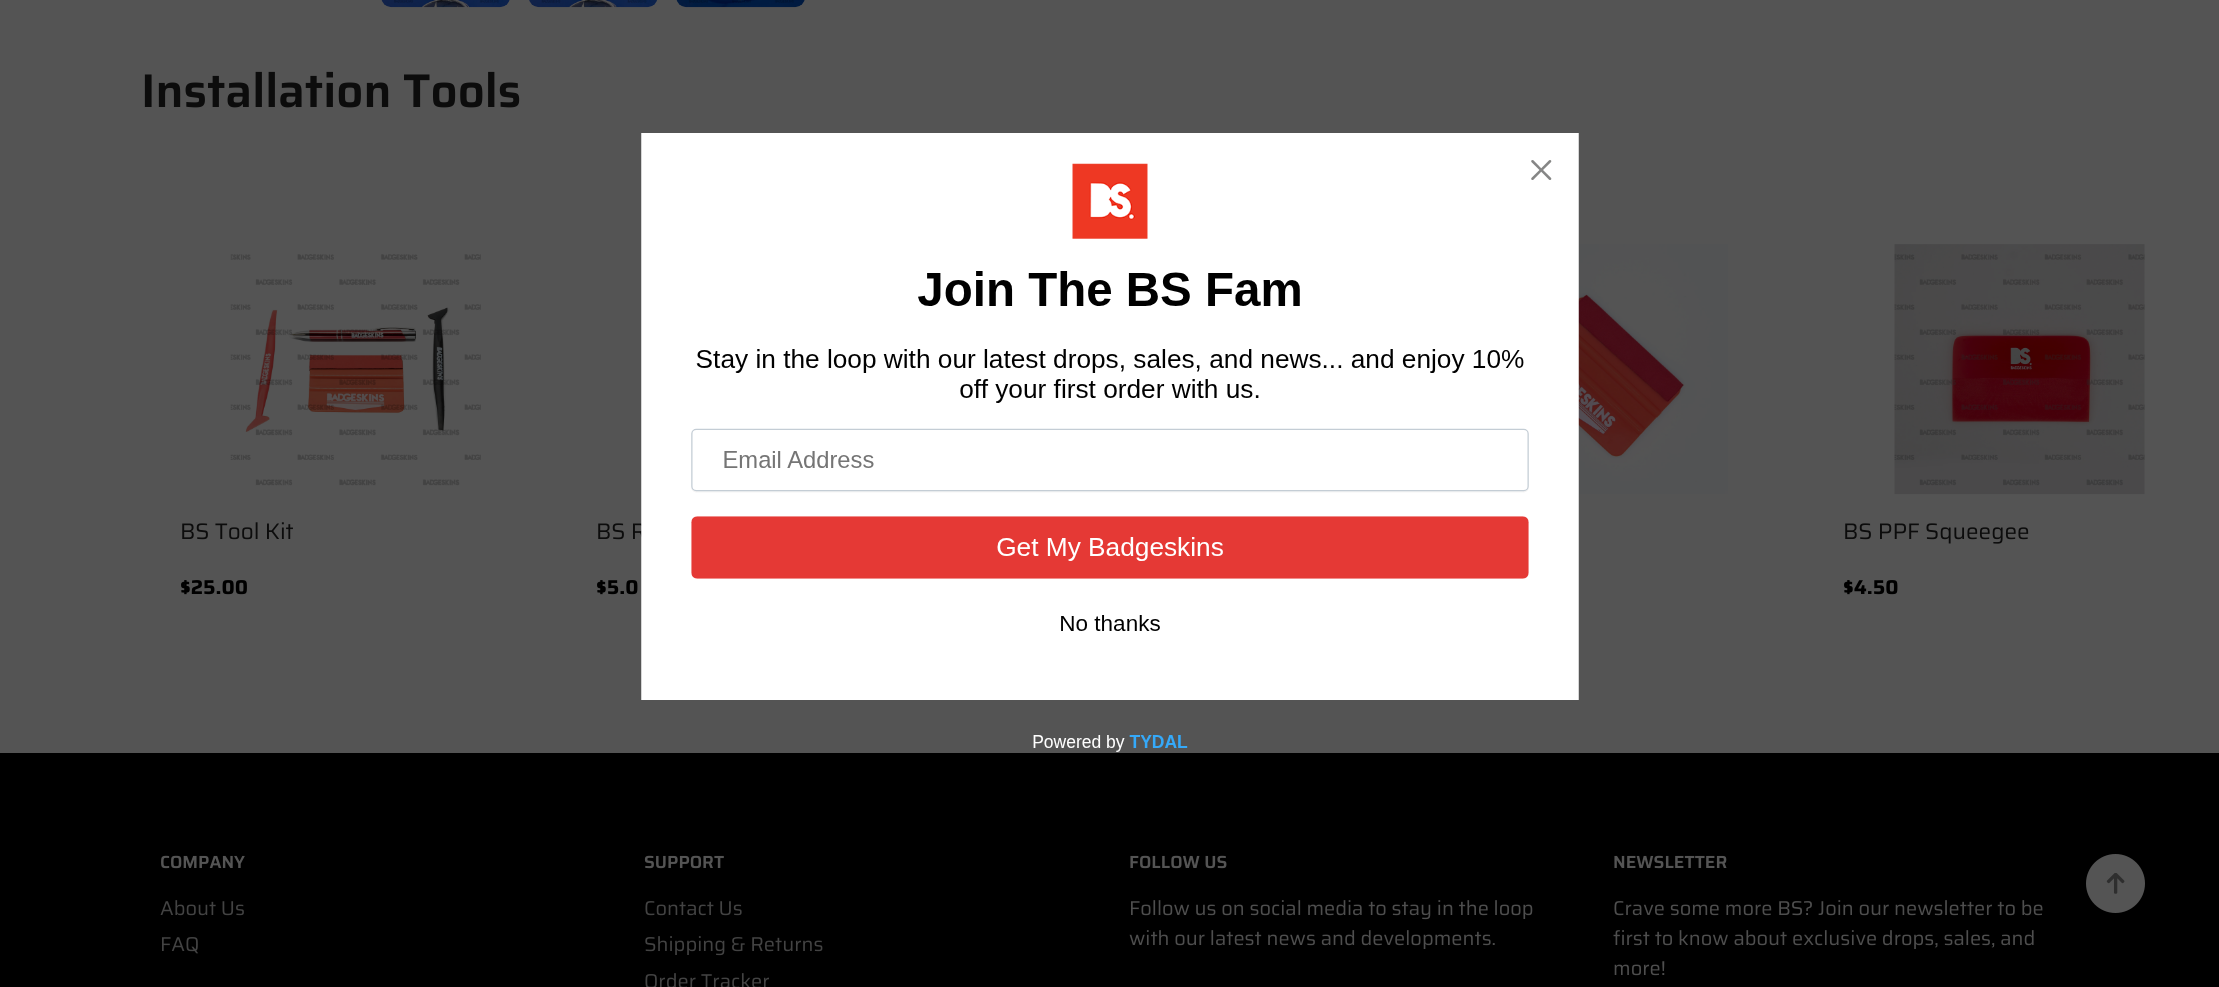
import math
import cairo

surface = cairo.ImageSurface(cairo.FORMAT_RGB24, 2219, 987)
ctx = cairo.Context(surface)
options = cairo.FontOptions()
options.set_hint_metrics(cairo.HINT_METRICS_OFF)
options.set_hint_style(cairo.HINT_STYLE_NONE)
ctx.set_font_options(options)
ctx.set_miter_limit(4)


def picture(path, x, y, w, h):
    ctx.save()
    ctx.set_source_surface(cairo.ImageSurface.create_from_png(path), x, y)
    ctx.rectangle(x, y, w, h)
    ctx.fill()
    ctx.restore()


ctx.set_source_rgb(1, 1, 1)
ctx.paint()
picture("img2.png", 381, 0, 129, 8)
picture("img3.png", 529, 0, 128, 8)
picture("img4.png", 676, 0, 129, 8)
ctx.select_font_face("Saira SemiBold")
ctx.set_font_size(47.25)
ctx.set_source_rgb(0.137, 0.137, 0.137)
ctx.move_to(141, 107)
ctx.show_text("Installation Tools")
picture("img5.png", 1578, 244, 150, 250)
picture("img6.png", 230, 254, 251, 232)
ctx.select_font_face("Saira")
ctx.set_font_size(22.5)
ctx.move_to(180, 539)
ctx.show_text("BS Tool Kit")
ctx.select_font_face("Saira", cairo.FONT_SLANT_NORMAL, cairo.FONT_WEIGHT_BOLD)
ctx.set_font_size(20)
ctx.set_source_rgb(0, 0, 0)
ctx.move_to(180, 594)
ctx.show_text("$25.00")
ctx.select_font_face("Saira")
ctx.set_font_size(22.5)
ctx.set_source_rgb(0.137, 0.137, 0.137)
ctx.move_to(596, 539)
ctx.show_text("BS R")
ctx.select_font_face("Saira", cairo.FONT_SLANT_NORMAL, cairo.FONT_WEIGHT_BOLD)
ctx.set_font_size(20)
ctx.set_source_rgb(0, 0, 0)
ctx.move_to(596, 594)
ctx.show_text("$5.0")
picture("img7.png", 1894, 244, 251, 251)
ctx.select_font_face("Saira")
ctx.set_font_size(22.5)
ctx.set_source_rgb(0.137, 0.137, 0.137)
ctx.move_to(1843, 539)
ctx.show_text("BS PPF Squeegee")
ctx.select_font_face("Saira", cairo.FONT_SLANT_NORMAL, cairo.FONT_WEIGHT_BOLD)
ctx.set_font_size(20)
ctx.set_source_rgb(0, 0, 0)
ctx.move_to(1843, 594)
ctx.show_text("$4.50")
ctx.rectangle(0, 753, 2219, 234)
ctx.fill()
ctx.select_font_face("Saira SemiBold")
ctx.set_font_size(17.5)
ctx.set_source_rgb(1, 1, 1)
ctx.move_to(160, 868)
ctx.show_text("COMPANY")
ctx.select_font_face("Saira")
ctx.set_font_size(20)
ctx.set_source_rgb(0.8, 0.8, 0.8)
ctx.move_to(160, 915)
ctx.show_text("About Us")
ctx.move_to(160, 951)
ctx.show_text("FAQ")
ctx.select_font_face("Saira SemiBold")
ctx.set_font_size(17.5)
ctx.set_source_rgb(1, 1, 1)
ctx.move_to(644, 868)
ctx.show_text("SUPPORT")
ctx.select_font_face("Saira")
ctx.set_font_size(20)
ctx.set_source_rgb(0.8, 0.8, 0.8)
ctx.move_to(644, 915)
ctx.show_text("Contact Us")
ctx.move_to(644, 951)
ctx.show_text("Shipping & Returns")
ctx.move_to(644, 988)
ctx.show_text("Order Tracker")
ctx.select_font_face("Saira SemiBold")
ctx.set_font_size(17.5)
ctx.set_source_rgb(1, 1, 1)
ctx.move_to(1129, 868)
ctx.show_text("FOLLOW US")
ctx.select_font_face("Saira")
ctx.set_font_size(20)
ctx.set_source_rgb(0.922, 0.922, 0.922)
ctx.move_to(1129, 915)
ctx.show_text("Follow us on social media to stay in the loop")
ctx.move_to(1129, 945)
ctx.show_text("with our latest news and developments.")
ctx.select_font_face("Saira SemiBold")
ctx.set_font_size(17.5)
ctx.set_source_rgb(1, 1, 1)
ctx.move_to(1613, 868)
ctx.show_text("NEWSLETTER")
ctx.select_font_face("Saira")
ctx.set_font_size(20)
ctx.set_source_rgb(0.922, 0.922, 0.922)
ctx.move_to(1613, 915)
ctx.show_text("Crave some more BS? Join our newsletter to be")
ctx.move_to(1613, 945)
ctx.show_text("first to know about exclusive drops, sales, and")
ctx.move_to(1613, 975)
ctx.show_text("more!")
ctx.set_source_rgb(1, 1, 1)
ctx.new_path()
ctx.arc(2115.5, 883.5, 29.5, 0, 2 * math.pi)
ctx.fill()
picture("img8.png", 2106, 873, 19, 21)
picture("img1.png", 0, 0, 2219, 987)
surface.write_to_png("page.png")
